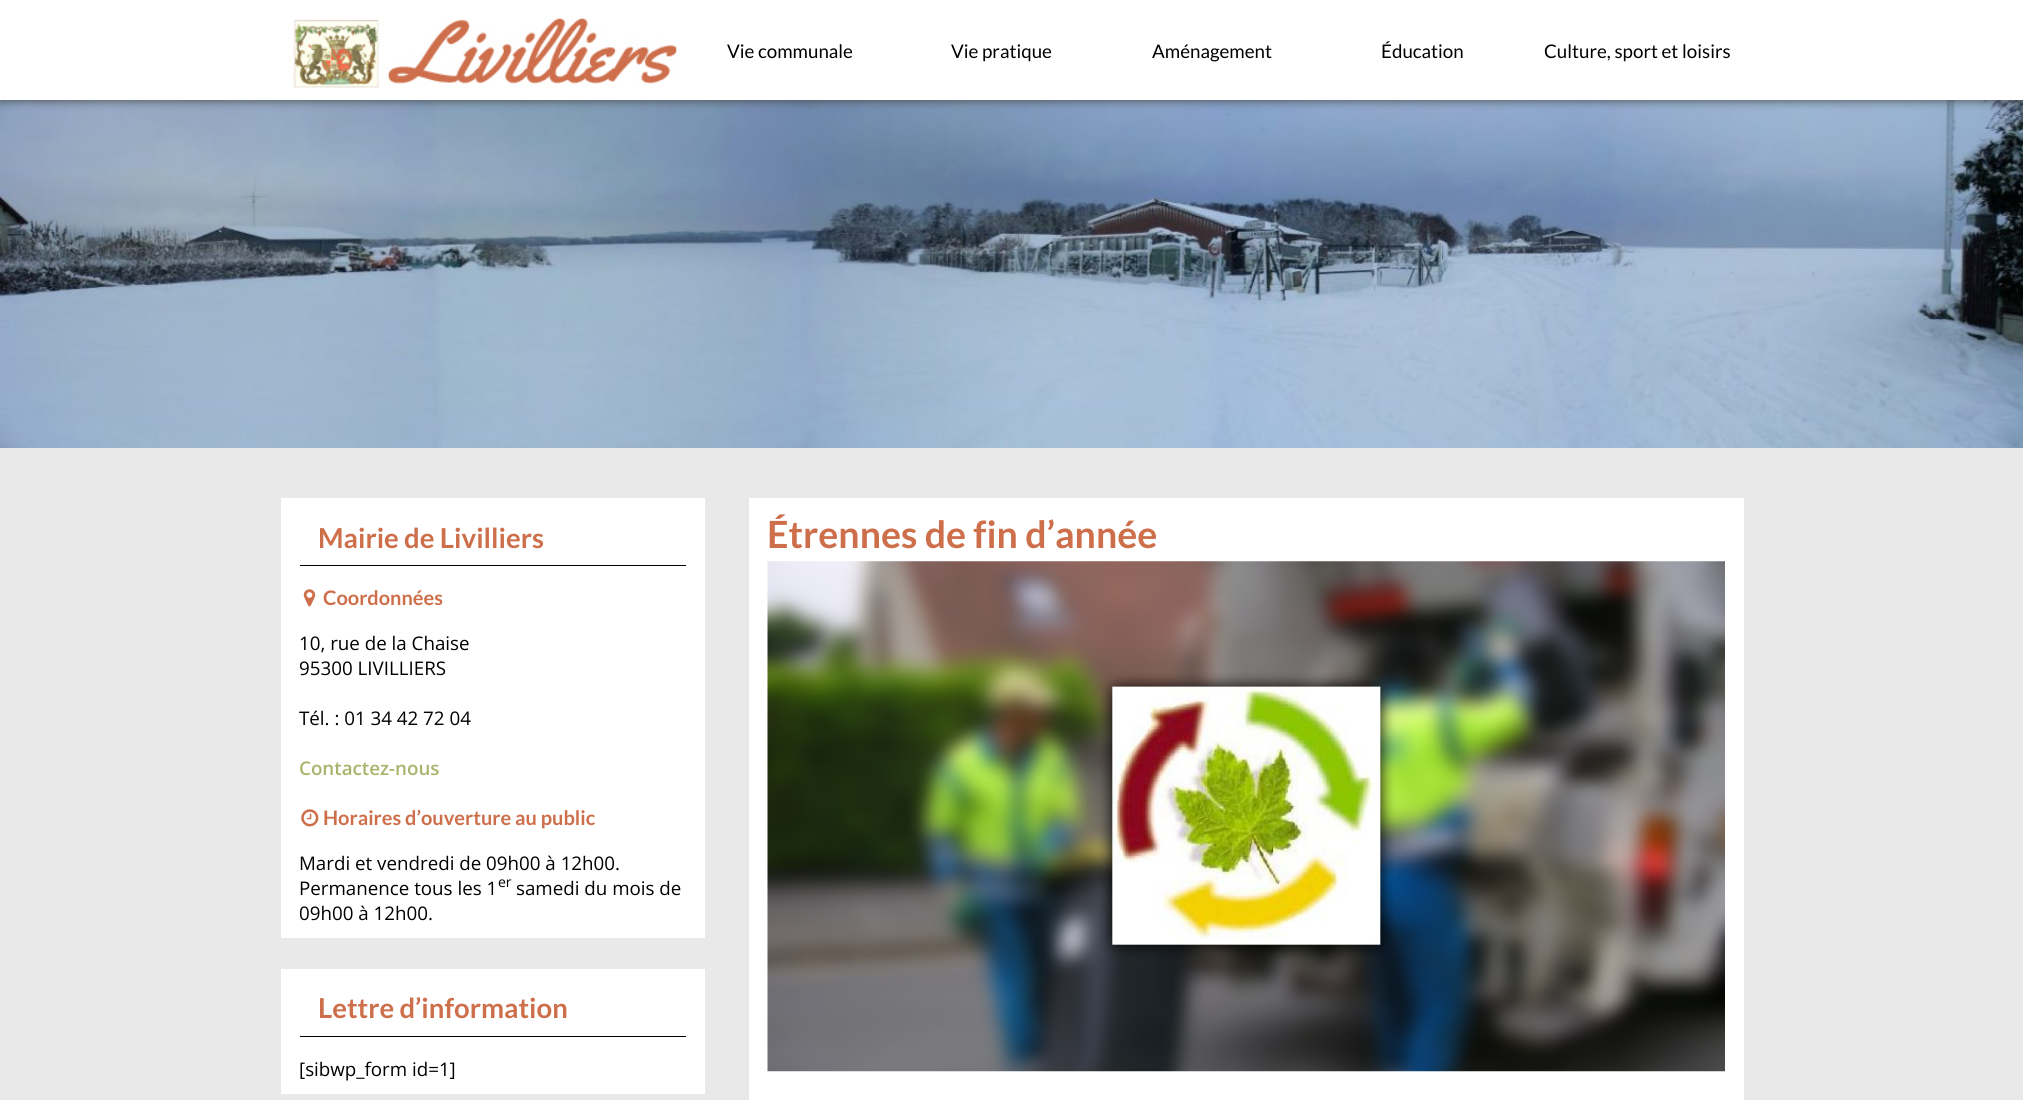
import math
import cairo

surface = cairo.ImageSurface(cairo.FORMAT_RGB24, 2023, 1100)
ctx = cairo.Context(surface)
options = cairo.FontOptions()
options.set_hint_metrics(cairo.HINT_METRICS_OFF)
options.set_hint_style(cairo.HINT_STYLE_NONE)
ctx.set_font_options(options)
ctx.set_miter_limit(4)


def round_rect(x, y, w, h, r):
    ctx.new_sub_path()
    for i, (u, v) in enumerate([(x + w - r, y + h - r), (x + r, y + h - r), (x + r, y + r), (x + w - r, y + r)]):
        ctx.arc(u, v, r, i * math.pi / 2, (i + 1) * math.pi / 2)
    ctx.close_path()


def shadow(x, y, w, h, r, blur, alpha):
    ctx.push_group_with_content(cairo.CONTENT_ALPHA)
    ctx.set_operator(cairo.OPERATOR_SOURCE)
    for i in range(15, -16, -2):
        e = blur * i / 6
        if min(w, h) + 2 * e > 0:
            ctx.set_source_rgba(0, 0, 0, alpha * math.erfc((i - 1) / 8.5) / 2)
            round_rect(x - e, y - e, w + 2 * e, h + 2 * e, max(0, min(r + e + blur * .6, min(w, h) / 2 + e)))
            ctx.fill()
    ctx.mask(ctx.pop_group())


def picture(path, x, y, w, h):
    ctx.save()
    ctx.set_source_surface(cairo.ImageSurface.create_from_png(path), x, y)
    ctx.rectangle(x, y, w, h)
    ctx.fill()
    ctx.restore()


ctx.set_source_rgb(0.914, 0.914, 0.914)
ctx.paint()
picture("img2.png", 0, 100, 2023, 348)
ctx.set_source_rgb(0.267, 0.267, 0.267)
shadow(0, 0, 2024, 100, 0, 5, 1)
ctx.set_source_rgb(1, 1, 1)
ctx.rectangle(0, 0, 2023, 100)
ctx.fill()
picture("img1.png", 293, 18, 384, 70)
ctx.select_font_face("Lato")
ctx.set_font_size(18.75)
ctx.set_source_rgb(0, 0, 0)
ctx.move_to(727, 58)
ctx.show_text("Vie communale")
ctx.move_to(951, 58)
ctx.show_text("Vie pratique")
ctx.move_to(1152, 58)
ctx.show_text("Aménagement")
ctx.move_to(1381, 58)
ctx.show_text("Éducation")
ctx.move_to(1544, 58)
ctx.show_text("Culture, sport et loisirs")
ctx.set_source_rgb(1, 1, 1)
ctx.rectangle(281, 498, 424, 440)
ctx.fill()
ctx.set_source_rgb(0, 0, 0)
ctx.rectangle(300, 565, 386, 1)
ctx.fill()
ctx.select_font_face("Lato", cairo.FONT_SLANT_NORMAL, cairo.FONT_WEIGHT_BOLD)
ctx.set_font_size(27.5)
ctx.set_source_rgb(0.808, 0.435, 0.298)
ctx.move_to(318, 548)
ctx.show_text("Mairie de Livilliers")
picture("img3.png", 303, 589, 13, 18)
ctx.set_font_size(20)
ctx.move_to(323, 605)
ctx.show_text("Coordonnées")
ctx.select_font_face("Open Sans")
ctx.set_font_size(18.75)
ctx.set_source_rgb(0, 0, 0)
ctx.move_to(299, 650)
ctx.show_text("10, rue de la Chaise")
ctx.move_to(299, 675)
ctx.show_text("95300 LIVILLIERS")
ctx.move_to(299, 725)
ctx.show_text("Tél. : 01 34 42 72 04")
ctx.select_font_face("Open Sans SemiBold")
ctx.set_source_rgb(0.659, 0.702, 0.42)
ctx.move_to(299, 775)
ctx.show_text("Contactez-nous")
picture("img4.png", 301, 809, 18, 18)
ctx.select_font_face("Lato", cairo.FONT_SLANT_NORMAL, cairo.FONT_WEIGHT_BOLD)
ctx.set_font_size(20)
ctx.set_source_rgb(0.808, 0.435, 0.298)
ctx.move_to(323, 825)
ctx.show_text("Horaires d’ouverture au public")
ctx.select_font_face("Open Sans")
ctx.set_font_size(18.75)
ctx.set_source_rgb(0, 0, 0)
ctx.move_to(299, 870)
ctx.show_text("Mardi et vendredi de 09h00 à 12h00.")
ctx.move_to(299, 895)
ctx.show_text("Permanence tous les 1")
ctx.set_font_size(14)
ctx.move_to(498, 887)
ctx.show_text("er")
ctx.set_font_size(18.75)
ctx.move_to(516, 895)
ctx.show_text("samedi du mois de")
ctx.move_to(299, 920)
ctx.show_text("09h00 à 12h00.")
ctx.set_source_rgb(1, 1, 1)
ctx.rectangle(281, 969, 424, 125)
ctx.fill()
ctx.set_source_rgb(0, 0, 0)
ctx.rectangle(300, 1036, 386, 1)
ctx.fill()
ctx.select_font_face("Lato", cairo.FONT_SLANT_NORMAL, cairo.FONT_WEIGHT_BOLD)
ctx.set_font_size(27.5)
ctx.set_source_rgb(0.808, 0.435, 0.298)
ctx.move_to(318, 1018)
ctx.show_text("Lettre d’information")
ctx.select_font_face("Open Sans")
ctx.set_font_size(18.75)
ctx.set_source_rgb(0, 0, 0)
ctx.move_to(299, 1076)
ctx.show_text("[sibwp_form id=1]")
ctx.set_source_rgb(1, 1, 1)
ctx.rectangle(749, 498, 995, 602)
ctx.fill()
ctx.select_font_face("Lato", cairo.FONT_SLANT_NORMAL, cairo.FONT_WEIGHT_BOLD)
ctx.set_font_size(37.5)
ctx.set_source_rgb(0.808, 0.435, 0.298)
ctx.move_to(767, 548)
ctx.show_text("Étrennes de fin d’année")
picture("img5.png", 767, 561, 958, 511)
surface.write_to_png("page.png")
